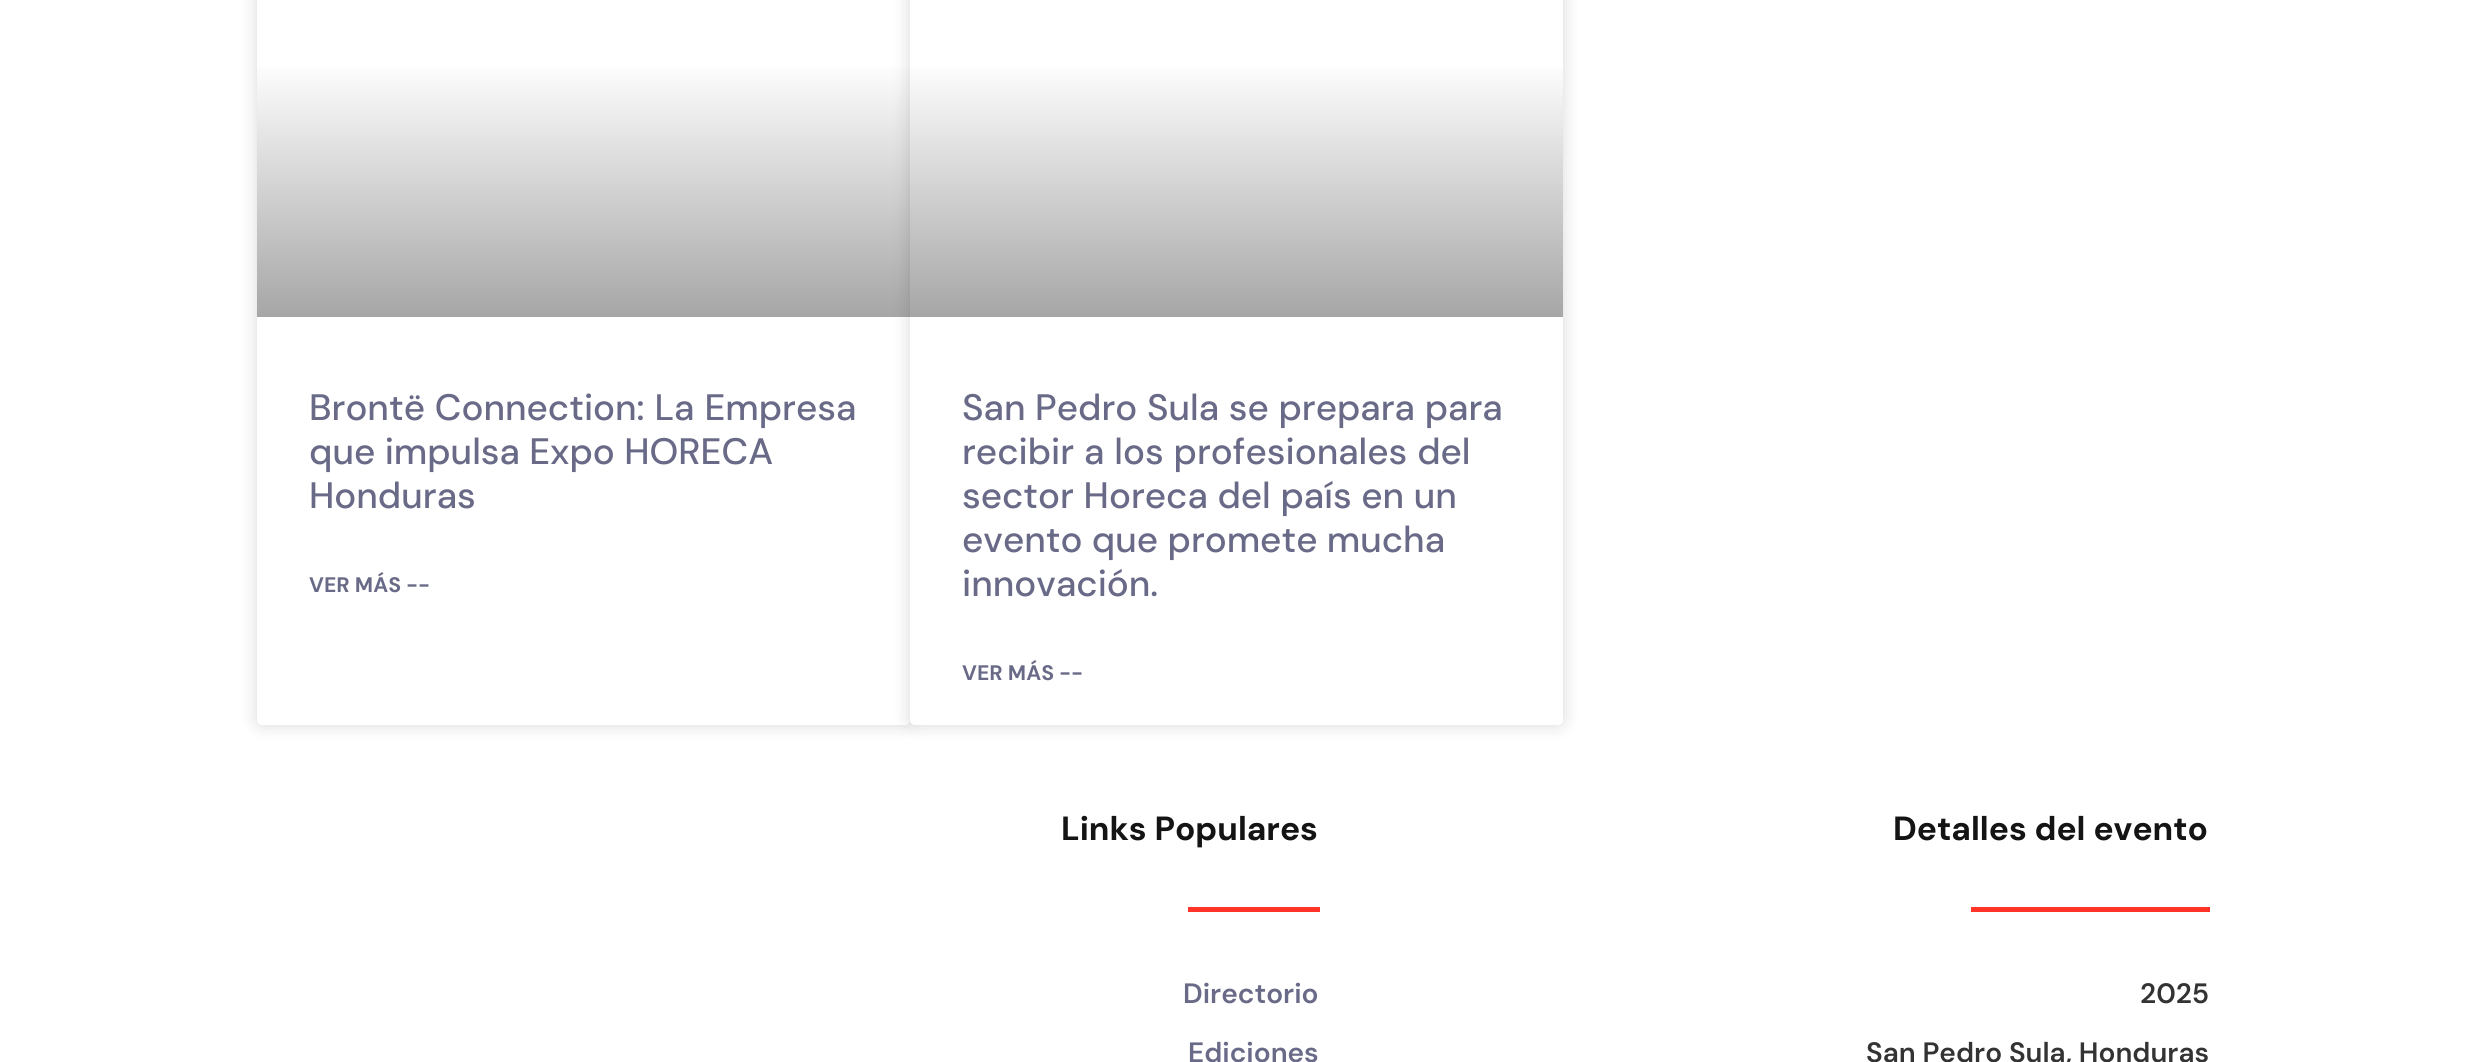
import math
import cairo

surface = cairo.ImageSurface(cairo.FORMAT_RGB24, 2472, 1062)
ctx = cairo.Context(surface)
options = cairo.FontOptions()
options.set_hint_metrics(cairo.HINT_METRICS_OFF)
options.set_hint_style(cairo.HINT_STYLE_NONE)
ctx.set_font_options(options)
ctx.set_miter_limit(4)


def spaced_text(x, y, s, letter, word):
    ctx.move_to(x, y)
    for ch in s:
        ctx.show_text(ch)
        ctx.rel_move_to(letter + word * (ch == ' '), 0)


def round_rect(x, y, w, h, r):
    ctx.new_sub_path()
    for i, (u, v) in enumerate([(x + w - r, y + h - r), (x + r, y + h - r), (x + r, y + r), (x + w - r, y + r)]):
        ctx.arc(u, v, r, i * math.pi / 2, (i + 1) * math.pi / 2)
    ctx.close_path()


def shadow(x, y, w, h, r, blur, alpha):
    ctx.push_group_with_content(cairo.CONTENT_ALPHA)
    ctx.set_operator(cairo.OPERATOR_SOURCE)
    for i in range(15, -16, -2):
        e = blur * i / 6
        if min(w, h) + 2 * e > 0:
            ctx.set_source_rgba(0, 0, 0, alpha * math.erfc((i - 1) / 8.5) / 2)
            round_rect(x - e, y - e, w + 2 * e, h + 2 * e, max(0, min(r + e + blur * .6, min(w, h) / 2 + e)))
            ctx.fill()
    ctx.mask(ctx.pop_group())


ctx.set_source_rgb(1, 1, 1)
ctx.paint()
ctx.set_source_rgb(0, 0, 0)
shadow(257, -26, 653, 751, 5, 9, 0.15)
ctx.set_source_rgb(1, 1, 1)
round_rect(257, -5, 653, 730, 5)
ctx.fill()
gradient = cairo.LinearGradient(584, 317, 584, -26)
gradient.add_color_stop_rgba(0, 0.651, 0.651, 0.651, 1)
gradient.add_color_stop_rgba(0.75, 1, 1, 1, 1)
ctx.set_source(gradient)
ctx.rectangle(257, 67, 653, 250)
ctx.fill()
ctx.select_font_face("DM Sans Medium")
ctx.set_font_size(36.75)
ctx.set_source_rgb(0.412, 0.416, 0.529)
spaced_text(309, 420, "Brontë Connection: La Empresa", 0, 0.5)
ctx.move_to(309, 464)
ctx.show_text("que impulsa Expo HORECA")
ctx.move_to(309, 508)
ctx.show_text("Honduras")
ctx.select_font_face("DM Sans", cairo.FONT_SLANT_NORMAL, cairo.FONT_WEIGHT_BOLD)
ctx.set_font_size(21)
ctx.move_to(309, 592)
ctx.show_text("VER MÁS --")
ctx.set_source_rgb(0, 0, 0)
shadow(910, -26, 653, 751, 5, 9, 0.15)
ctx.set_source_rgb(1, 1, 1)
round_rect(910, -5, 653, 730, 5)
ctx.fill()
gradient = cairo.LinearGradient(1236, 317, 1236, -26)
gradient.add_color_stop_rgba(0, 0.651, 0.651, 0.651, 1)
gradient.add_color_stop_rgba(0.75, 1, 1, 1, 1)
ctx.set_source(gradient)
ctx.rectangle(910, 67, 653, 250)
ctx.fill()
ctx.select_font_face("DM Sans Medium")
ctx.set_font_size(36.75)
ctx.set_source_rgb(0.412, 0.416, 0.529)
spaced_text(962, 420, "San Pedro Sula se prepara para", 0, 0.25)
spaced_text(962, 464, "recibir a los profesionales del", 0, 0.5)
spaced_text(962, 508, "sector Horeca del país en un", 0, 0.25)
ctx.move_to(962, 552)
ctx.show_text("evento que promete mucha")
ctx.move_to(962, 596)
ctx.show_text("innovación.")
ctx.select_font_face("DM Sans", cairo.FONT_SLANT_NORMAL, cairo.FONT_WEIGHT_BOLD)
ctx.set_font_size(21)
ctx.move_to(962, 680)
ctx.show_text("VER MÁS --")
ctx.select_font_face("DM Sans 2", cairo.FONT_SLANT_NORMAL, cairo.FONT_WEIGHT_BOLD)
ctx.set_font_size(33.5)
ctx.set_source_rgb(0.082, 0.082, 0.082)
ctx.move_to(1061, 840)
ctx.show_text("Links Populares")
ctx.set_source_rgb(1, 0.2, 0.157)
ctx.rectangle(1188, 907, 132, 5)
ctx.fill()
ctx.select_font_face("DM Sans SemiBold")
ctx.set_font_size(28)
ctx.set_source_rgb(0.412, 0.416, 0.529)
ctx.move_to(1183, 1003)
ctx.show_text("Directorio")
ctx.move_to(1188, 1062)
ctx.show_text("Ediciones")
ctx.select_font_face("DM Sans 2", cairo.FONT_SLANT_NORMAL, cairo.FONT_WEIGHT_BOLD)
ctx.set_font_size(33.5)
ctx.set_source_rgb(0.082, 0.082, 0.082)
ctx.move_to(1893, 840)
ctx.show_text("Detalles del evento")
ctx.set_source_rgb(1, 0.2, 0.157)
ctx.rectangle(1971, 907, 239, 5)
ctx.fill()
ctx.select_font_face("DM Sans SemiBold")
ctx.set_font_size(28)
ctx.set_source_rgb(0.2, 0.2, 0.2)
ctx.move_to(2140, 1003)
ctx.show_text("2025")
ctx.move_to(1866, 1062)
ctx.show_text("San Pedro Sula, Honduras")
surface.write_to_png("page.png")
